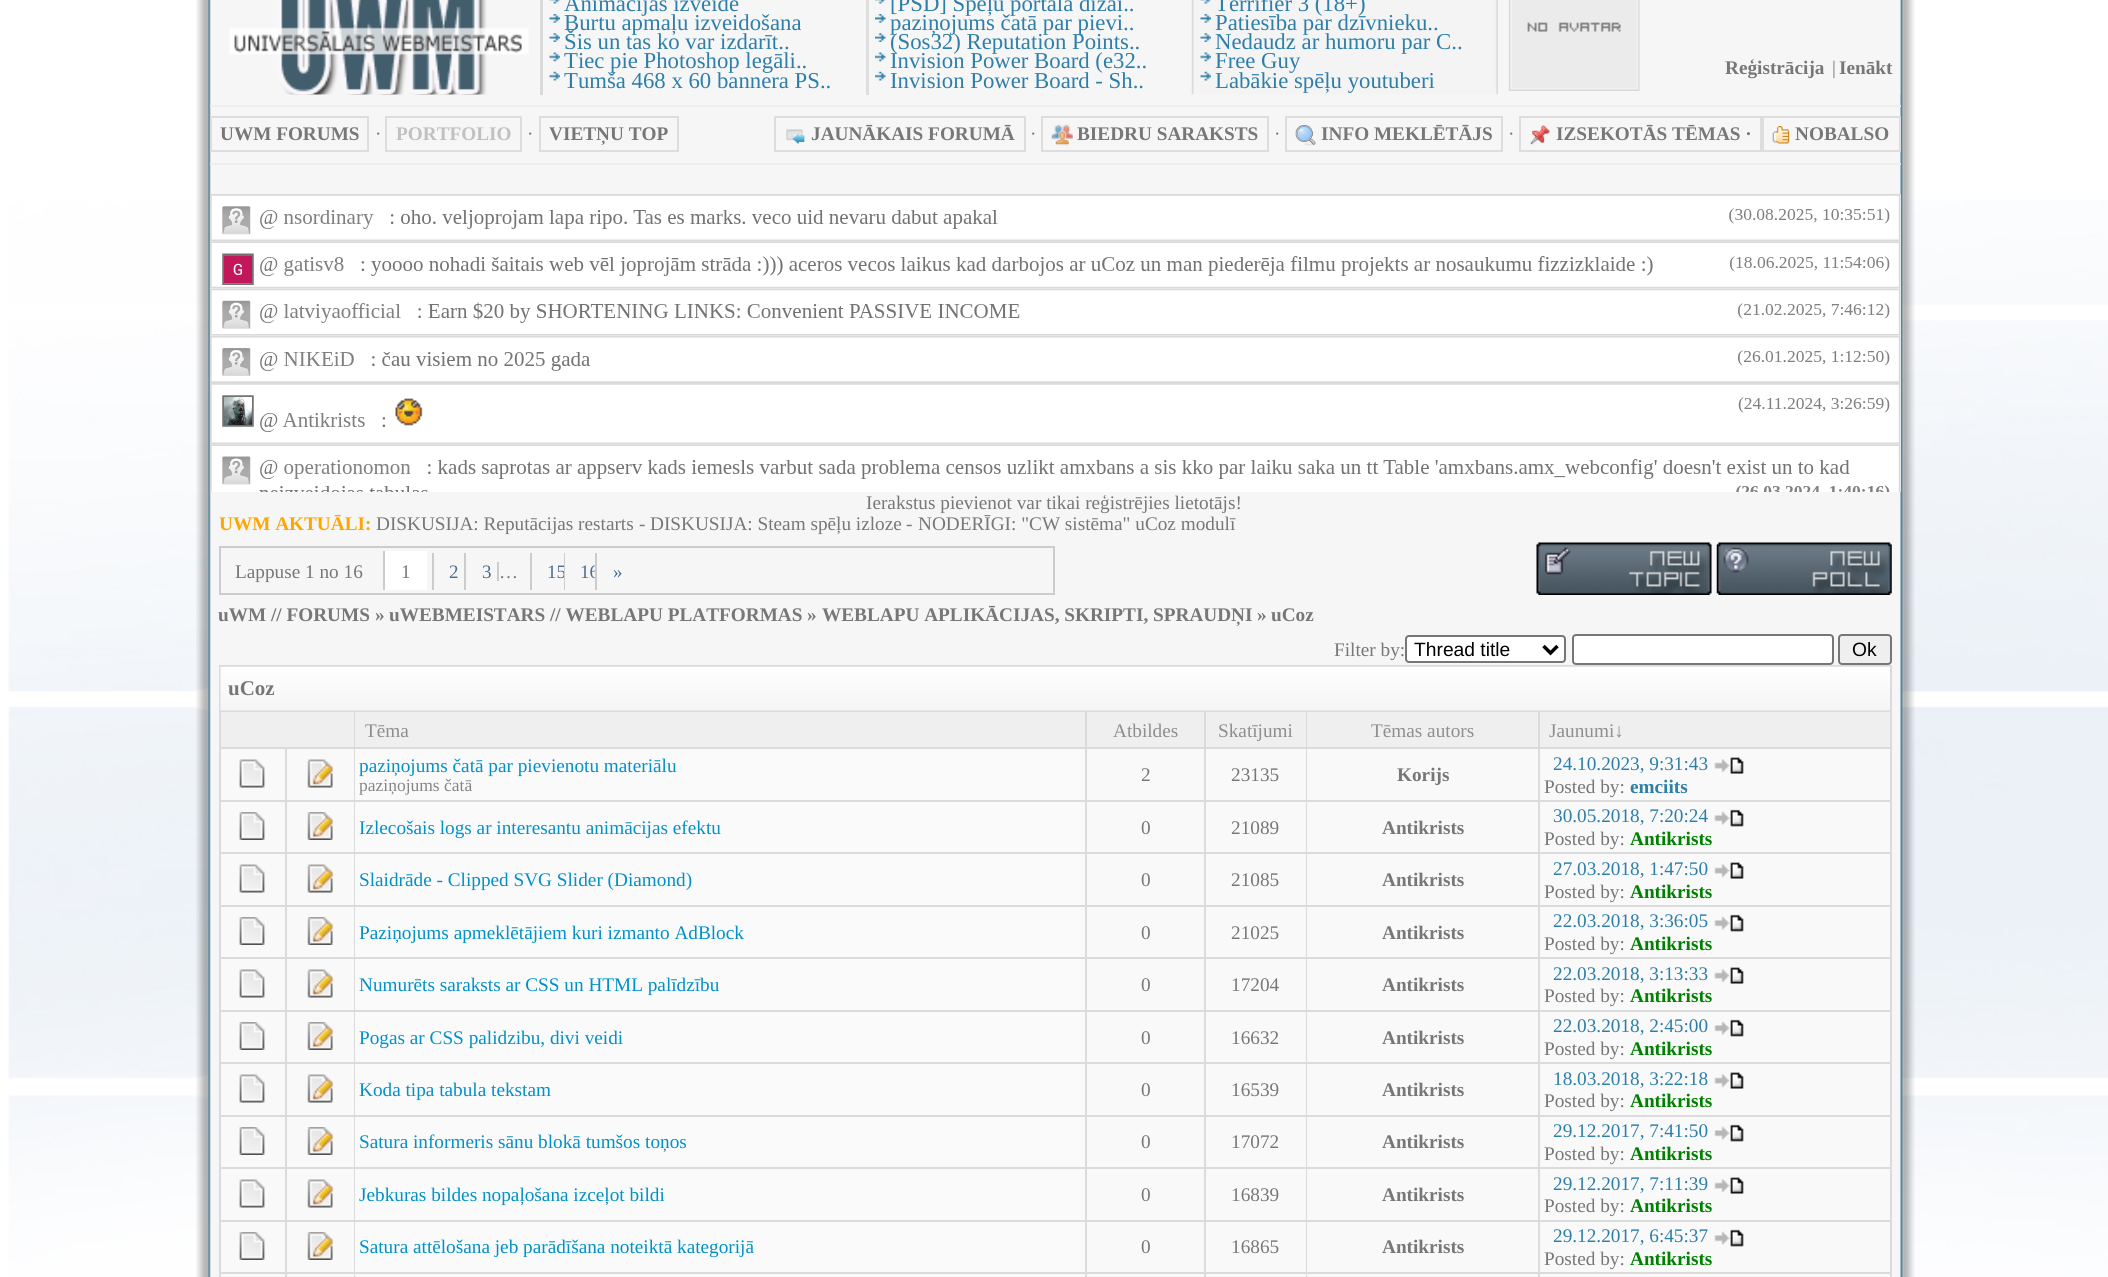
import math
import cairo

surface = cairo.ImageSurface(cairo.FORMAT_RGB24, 2108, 1277)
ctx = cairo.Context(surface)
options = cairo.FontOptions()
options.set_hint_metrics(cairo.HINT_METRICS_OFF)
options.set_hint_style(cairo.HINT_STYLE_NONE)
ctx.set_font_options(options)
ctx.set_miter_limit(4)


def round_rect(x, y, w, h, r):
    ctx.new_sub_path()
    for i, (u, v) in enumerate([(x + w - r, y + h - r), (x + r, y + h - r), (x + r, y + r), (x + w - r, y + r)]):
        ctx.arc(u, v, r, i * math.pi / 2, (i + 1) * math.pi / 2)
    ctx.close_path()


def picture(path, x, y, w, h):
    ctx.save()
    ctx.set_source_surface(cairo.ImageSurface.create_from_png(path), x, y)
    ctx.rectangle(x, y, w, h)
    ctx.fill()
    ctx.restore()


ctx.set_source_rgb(1, 1, 1)
ctx.paint()
picture("img1.png", 8, 200, 2100, 1077)
picture("img2.png", 196, 0, 1719, 1277)
picture("img3.png", 229, 0, 300, 95)
ctx.set_source_rgb(0.855, 0.855, 0.855)
ctx.rectangle(540, 0, 3, 95)
ctx.fill()
picture("img4.png", 549, 0, 11, 4)
ctx.select_font_face("Liberation Serif")
ctx.set_font_size(22.75)
ctx.set_source_rgb(0.176, 0.494, 0.659)
ctx.move_to(564, 11)
ctx.show_text("Animācijas izveide")
picture("img5.png", 549, 14, 11, 9)
ctx.move_to(564, 30)
ctx.show_text("Burtu apmaļu izveidošana")
picture("img6.png", 549, 33, 11, 9)
ctx.move_to(564, 49)
ctx.show_text("Šis un tas ko var izdarīt..")
picture("img7.png", 549, 52, 11, 10)
ctx.move_to(564, 68)
ctx.show_text("Tiec pie Photoshop legāli..")
picture("img8.png", 549, 71, 11, 10)
ctx.move_to(564, 88)
ctx.show_text("Tumša 468 x 60 bannera PS..")
ctx.set_source_rgb(0.871, 0.871, 0.871)
ctx.rectangle(866, 0, 3, 95)
ctx.fill()
picture("img9.png", 875, 0, 11, 4)
ctx.set_source_rgb(0.176, 0.494, 0.659)
ctx.move_to(890, 11)
ctx.show_text("[PSD] Spēļu portāla dizai..")
picture("img10.png", 875, 14, 11, 9)
ctx.move_to(890, 30)
ctx.show_text("paziņojums čatā par pievi..")
picture("img11.png", 875, 33, 11, 9)
ctx.move_to(890, 49)
ctx.show_text("(Sos32) Reputation Points..")
picture("img12.png", 875, 52, 11, 10)
ctx.move_to(890, 68)
ctx.show_text("Invision Power Board (e32..")
picture("img13.png", 875, 71, 11, 10)
ctx.move_to(890, 88)
ctx.show_text("Invision Power Board - Sh..")
picture("img14.png", 1191, 0, 307, 95)
picture("img15.png", 1200, 0, 11, 4)
ctx.move_to(1215, 11)
ctx.show_text("Terrifier 3 (18+)")
picture("img16.png", 1200, 14, 11, 9)
ctx.move_to(1215, 30)
ctx.show_text("Patiesība par dzīvnieku..")
picture("img17.png", 1200, 33, 11, 9)
ctx.move_to(1215, 49)
ctx.show_text("Nedaudz ar humoru par C..")
picture("img18.png", 1200, 52, 11, 10)
ctx.move_to(1215, 68)
ctx.show_text("Free Guy")
picture("img19.png", 1200, 71, 11, 10)
ctx.move_to(1215, 88)
ctx.show_text("Labākie spēļu youtuberi")
picture("img20.png", 1900, 0, 1, 95)
picture("img21.png", 1508, 0, 132, 91)
ctx.select_font_face("Liberation Serif", cairo.FONT_SLANT_NORMAL, cairo.FONT_WEIGHT_BOLD)
ctx.set_font_size(19.25)
ctx.set_source_rgb(0.467, 0.467, 0.467)
ctx.move_to(1725, 74)
ctx.show_text("Reģistrācija")
ctx.select_font_face("Liberation Serif")
ctx.move_to(1832, 74)
ctx.show_text("|")
ctx.select_font_face("Liberation Serif", cairo.FONT_SLANT_NORMAL, cairo.FONT_WEIGHT_BOLD)
ctx.move_to(1839, 74)
ctx.show_text("Ienākt")
ctx.set_source_rgb(0.933, 0.933, 0.933)
ctx.rectangle(210, 105, 1691, 2)
ctx.fill()
ctx.rectangle(211, 117, 157, 34)
ctx.set_source_rgb(0.867, 0.867, 0.867)
ctx.stroke()
ctx.set_source_rgb(0.467, 0.467, 0.467)
ctx.move_to(220, 140)
ctx.show_text("UWM FORUMS")
ctx.select_font_face("Liberation Serif")
ctx.move_to(375, 140)
ctx.show_text("·")
ctx.rectangle(386, 117, 135, 34)
ctx.set_source_rgb(0.867, 0.867, 0.867)
ctx.stroke()
ctx.select_font_face("Liberation Serif", cairo.FONT_SLANT_NORMAL, cairo.FONT_WEIGHT_BOLD)
ctx.set_source_rgb(0.753, 0.753, 0.753)
ctx.move_to(396, 140)
ctx.show_text("PORTFOLIO")
ctx.select_font_face("Liberation Serif")
ctx.set_source_rgb(0.467, 0.467, 0.467)
ctx.move_to(527, 140)
ctx.show_text("·")
ctx.rectangle(540, 117, 138, 34)
ctx.set_source_rgb(0.867, 0.867, 0.867)
ctx.stroke()
ctx.select_font_face("Liberation Serif", cairo.FONT_SLANT_NORMAL, cairo.FONT_WEIGHT_BOLD)
ctx.set_source_rgb(0.467, 0.467, 0.467)
ctx.move_to(549, 140)
ctx.show_text("VIETŅU TOP")
ctx.rectangle(775, 117, 250, 34)
ctx.set_source_rgb(0.867, 0.867, 0.867)
ctx.stroke()
picture("img22.png", 786, 129, 19, 15)
ctx.set_source_rgb(0.467, 0.467, 0.467)
ctx.move_to(811, 140)
ctx.show_text("JAUNĀKAIS FORUMĀ")
ctx.select_font_face("Liberation Serif")
ctx.move_to(1030, 140)
ctx.show_text("·")
ctx.rectangle(1042, 117, 226, 34)
ctx.set_source_rgb(0.867, 0.867, 0.867)
ctx.stroke()
picture("img23.png", 1051, 124, 22, 22)
ctx.select_font_face("Liberation Serif", cairo.FONT_SLANT_NORMAL, cairo.FONT_WEIGHT_BOLD)
ctx.set_source_rgb(0.467, 0.467, 0.467)
ctx.move_to(1077, 140)
ctx.show_text("BIEDRU SARAKSTS")
ctx.select_font_face("Liberation Serif")
ctx.move_to(1274, 140)
ctx.show_text("·")
ctx.rectangle(1286, 117, 216, 34)
ctx.set_source_rgb(0.867, 0.867, 0.867)
ctx.stroke()
picture("img24.png", 1295, 125, 21, 21)
ctx.select_font_face("Liberation Serif", cairo.FONT_SLANT_NORMAL, cairo.FONT_WEIGHT_BOLD)
ctx.set_source_rgb(0.467, 0.467, 0.467)
ctx.move_to(1321, 140)
ctx.show_text("INFO MEKLĒTĀJS")
ctx.select_font_face("Liberation Serif")
ctx.move_to(1508, 140)
ctx.show_text("·")
ctx.rectangle(1520, 117, 241, 34)
ctx.set_source_rgb(0.867, 0.867, 0.867)
ctx.stroke()
picture("img25.png", 1530, 125, 20, 20)
ctx.select_font_face("Liberation Serif", cairo.FONT_SLANT_NORMAL, cairo.FONT_WEIGHT_BOLD)
ctx.set_source_rgb(0.467, 0.467, 0.467)
ctx.move_to(1556, 140)
ctx.show_text("IZSEKOTĀS TĒMAS ·")
ctx.rectangle(1763, 117, 137, 34)
ctx.set_source_rgb(0.867, 0.867, 0.867)
ctx.stroke()
picture("img26.png", 1772, 126, 18, 18)
ctx.set_source_rgb(0.467, 0.467, 0.467)
ctx.move_to(1795, 140)
ctx.show_text("NOBALSO")
ctx.set_source_rgb(0.933, 0.933, 0.933)
ctx.rectangle(210, 163, 1691, 2)
ctx.fill()
picture("img27.png", 210, 194, 1691, 298)
ctx.select_font_face("Liberation Serif")
ctx.set_source_rgb(0.467, 0.467, 0.467)
ctx.move_to(866, 509)
ctx.show_text("Ierakstus pievienot var tikai reģistrējies lietotājs!")
ctx.select_font_face("Liberation Serif", cairo.FONT_SLANT_NORMAL, cairo.FONT_WEIGHT_BOLD)
ctx.set_source_rgb(1, 0.647, 0)
ctx.move_to(219, 530)
ctx.show_text("UWM AKTUĀLI:")
ctx.select_font_face("Liberation Serif")
ctx.set_source_rgb(0.467, 0.467, 0.467)
ctx.move_to(376, 530)
ctx.show_text("DISKUSIJA: Reputācijas restarts")
ctx.move_to(639, 530)
ctx.show_text("-")
ctx.move_to(650, 530)
ctx.show_text("DISKUSIJA: Steam spēļu izloze")
ctx.move_to(906, 530)
ctx.show_text("-")
ctx.move_to(918, 530)
ctx.show_text("NODERĪGI: \"CW sistēma\" uCoz modulī")
ctx.rectangle(220, 547, 834, 47)
ctx.set_source_rgb(0.8, 0.8, 0.8)
ctx.stroke()
ctx.set_source_rgb(0.467, 0.467, 0.467)
ctx.move_to(235, 578)
ctx.show_text("Lappuse 1 no 16")
ctx.set_source_rgb(1, 1, 1)
ctx.rectangle(385, 551, 42, 39)
ctx.fill()
ctx.set_source_rgb(0.8, 0.8, 0.8)
ctx.rectangle(383, 551, 2, 39)
ctx.fill()
ctx.set_source_rgb(0.467, 0.467, 0.467)
ctx.move_to(401, 578)
ctx.show_text("1")
ctx.set_source_rgb(0.8, 0.8, 0.8)
ctx.rectangle(432, 553, 2, 37)
ctx.fill()
ctx.set_font_size(19)
ctx.set_source_rgb(0.302, 0.427, 0.569)
ctx.move_to(449, 578)
ctx.show_text("2")
ctx.set_source_rgb(0.8, 0.8, 0.8)
ctx.rectangle(464, 553, 2, 37)
ctx.fill()
ctx.set_source_rgb(0.302, 0.427, 0.569)
ctx.move_to(482, 578)
ctx.show_text("3")
ctx.set_source_rgb(0.8, 0.8, 0.8)
ctx.rectangle(497, 562, 2, 19)
ctx.fill()
ctx.set_source_rgb(0.467, 0.467, 0.467)
ctx.move_to(499, 578)
ctx.show_text("…")
ctx.set_source_rgb(0.8, 0.8, 0.8)
ctx.rectangle(530, 553, 2, 37)
ctx.fill()
ctx.set_source_rgb(0.302, 0.427, 0.569)
ctx.move_to(547, 578)
ctx.show_text("15")
ctx.set_source_rgb(0.8, 0.8, 0.8)
ctx.rectangle(564, 553, 1, 37)
ctx.fill()
ctx.set_source_rgb(0.961, 0.961, 0.961)
ctx.rectangle(565, 573, 1, 3)
ctx.fill()
ctx.set_source_rgb(0.302, 0.427, 0.569)
ctx.move_to(580, 578)
ctx.show_text("16")
ctx.set_source_rgb(0.8, 0.8, 0.8)
ctx.rectangle(595, 553, 2, 37)
ctx.fill()
ctx.set_source_rgb(0.961, 0.961, 0.961)
ctx.rectangle(597, 565, 2, 13)
ctx.fill()
ctx.set_source_rgb(0.302, 0.427, 0.569)
ctx.move_to(613, 578)
ctx.show_text("»")
picture("img28.png", 1536, 542, 176, 53)
picture("img29.png", 1716, 542, 176, 53)
ctx.select_font_face("Liberation Serif", cairo.FONT_SLANT_NORMAL, cairo.FONT_WEIGHT_BOLD)
ctx.set_font_size(19.25)
ctx.set_source_rgb(0.467, 0.467, 0.467)
ctx.move_to(218, 621)
ctx.show_text("uWM // FORUMS")
ctx.move_to(375, 621)
ctx.show_text("»")
ctx.move_to(389, 621)
ctx.show_text("uWEBMEISTARS // WEBLAPU PLATFORMAS")
ctx.move_to(807, 621)
ctx.show_text("»")
ctx.move_to(822, 621)
ctx.show_text("WEBLAPU APLIKĀCIJAS, SKRIPTI, SPRAUDŅI")
ctx.move_to(1257, 621)
ctx.show_text("»")
ctx.move_to(1271, 621)
ctx.show_text("uCoz")
ctx.select_font_face("Liberation Serif")
ctx.move_to(1334, 656)
ctx.show_text("Filter by:")
ctx.set_source_rgb(1, 1, 1)
round_rect(1406, 636, 159, 26, 3)
ctx.fill_preserve()
ctx.set_source_rgb(0.463, 0.463, 0.463)
ctx.stroke()
ctx.new_path()
ctx.move_to(1543.5, 646)
ctx.line_to(1550.5, 653)
ctx.line_to(1557.5, 646)
ctx.set_source_rgb(0, 0, 0)
ctx.set_line_width(3.5)
ctx.stroke()
ctx.select_font_face("Liberation Sans")
ctx.move_to(1414, 656)
ctx.show_text("Thread title")
ctx.set_source_rgb(1, 1, 1)
round_rect(1573, 635, 260, 29, 3)
ctx.fill_preserve()
ctx.set_source_rgb(0.463, 0.463, 0.463)
ctx.set_line_width(2)
ctx.stroke()
ctx.set_source_rgb(0.937, 0.937, 0.937)
round_rect(1839, 635, 52, 29, 3)
ctx.fill_preserve()
ctx.set_source_rgb(0.463, 0.463, 0.463)
ctx.stroke()
ctx.set_source_rgb(0, 0, 0)
ctx.move_to(1852, 656)
ctx.show_text("Ok")
ctx.set_source_rgb(0.859, 0.859, 0.859)
ctx.rectangle(219, 665, 1673, 612)
ctx.fill()
picture("img30.png", 220, 666, 1670, 45)
ctx.select_font_face("Liberation Serif", cairo.FONT_SLANT_NORMAL, cairo.FONT_WEIGHT_BOLD)
ctx.set_font_size(21)
ctx.set_source_rgb(0.467, 0.467, 0.467)
ctx.move_to(228, 695)
ctx.show_text("uCoz")
ctx.set_source_rgb(0.937, 0.937, 0.937)
ctx.rectangle(221, 712, 133, 35)
ctx.fill()
ctx.rectangle(355, 712, 730, 35)
ctx.fill()
ctx.select_font_face("Liberation Serif")
ctx.set_font_size(19.25)
ctx.set_source_rgb(0.557, 0.557, 0.557)
ctx.move_to(365, 737)
ctx.show_text("Tēma")
ctx.set_source_rgb(0.937, 0.937, 0.937)
ctx.rectangle(1087, 712, 117, 35)
ctx.fill()
ctx.set_source_rgb(0.557, 0.557, 0.557)
ctx.move_to(1113, 737)
ctx.show_text("Atbildes")
ctx.set_source_rgb(0.937, 0.937, 0.937)
ctx.rectangle(1206, 712, 100, 35)
ctx.fill()
ctx.set_source_rgb(0.557, 0.557, 0.557)
ctx.move_to(1218, 737)
ctx.show_text("Skatījumi")
ctx.set_source_rgb(0.937, 0.937, 0.937)
ctx.rectangle(1307, 712, 231, 35)
ctx.fill()
ctx.set_source_rgb(0.557, 0.557, 0.557)
ctx.move_to(1371, 737)
ctx.show_text("Tēmas autors")
ctx.set_source_rgb(0.937, 0.937, 0.937)
ctx.rectangle(1540, 712, 350, 35)
ctx.fill()
ctx.set_source_rgb(0.557, 0.557, 0.557)
ctx.move_to(1549, 737)
ctx.show_text("Jaunumi↓")
ctx.set_source_rgb(0.973, 0.973, 0.973)
ctx.rectangle(221, 749, 64, 51)
ctx.fill()
picture("img31.png", 239, 759, 26, 29)
ctx.rectangle(287, 749, 67, 51)
ctx.fill()
picture("img32.png", 307, 759, 27, 29)
ctx.set_source_rgb(0.98, 0.98, 0.98)
ctx.rectangle(355, 749, 730, 51)
ctx.fill()
ctx.set_source_rgb(0.004, 0.569, 0.784)
ctx.move_to(359, 772)
ctx.show_text("paziņojums čatā par pievienotu materiālu")
ctx.set_font_size(17.5)
ctx.set_source_rgb(0.522, 0.522, 0.522)
ctx.move_to(359, 791)
ctx.show_text("paziņojums čatā")
ctx.set_source_rgb(0.973, 0.973, 0.973)
ctx.rectangle(1087, 749, 117, 51)
ctx.fill()
ctx.set_font_size(19.25)
ctx.set_source_rgb(0.467, 0.467, 0.467)
ctx.move_to(1141, 781)
ctx.show_text("2")
ctx.set_source_rgb(0.973, 0.973, 0.973)
ctx.rectangle(1206, 749, 100, 51)
ctx.fill()
ctx.set_source_rgb(0.467, 0.467, 0.467)
ctx.move_to(1231, 781)
ctx.show_text("23135")
ctx.set_source_rgb(0.973, 0.973, 0.973)
ctx.rectangle(1307, 749, 231, 51)
ctx.fill()
ctx.select_font_face("Liberation Serif", cairo.FONT_SLANT_NORMAL, cairo.FONT_WEIGHT_BOLD)
ctx.set_source_rgb(0.467, 0.467, 0.467)
ctx.move_to(1397, 781)
ctx.show_text("Korijs")
ctx.set_source_rgb(0.973, 0.973, 0.973)
ctx.rectangle(1540, 749, 350, 51)
ctx.fill()
ctx.select_font_face("Liberation Serif")
ctx.set_source_rgb(0.176, 0.494, 0.659)
ctx.move_to(1553, 770)
ctx.show_text("24.10.2023, 9:31:43")
picture("img33.png", 1714, 757, 30, 17)
ctx.set_source_rgb(0.467, 0.467, 0.467)
ctx.move_to(1544, 793)
ctx.show_text("Posted by:")
ctx.select_font_face("Liberation Serif", cairo.FONT_SLANT_NORMAL, cairo.FONT_WEIGHT_BOLD)
ctx.set_source_rgb(0.176, 0.494, 0.659)
ctx.move_to(1630, 793)
ctx.show_text("emciits")
ctx.set_source_rgb(0.973, 0.973, 0.973)
ctx.rectangle(221, 802, 64, 50)
ctx.fill()
picture("img34.png", 239, 812, 26, 28)
ctx.rectangle(287, 802, 67, 50)
ctx.fill()
picture("img35.png", 307, 812, 27, 28)
ctx.set_source_rgb(0.98, 0.98, 0.98)
ctx.rectangle(355, 802, 730, 50)
ctx.fill()
ctx.select_font_face("Liberation Serif")
ctx.set_source_rgb(0.004, 0.569, 0.784)
ctx.move_to(359, 834)
ctx.show_text("Izlecošais logs ar interesantu animācijas efektu")
ctx.set_source_rgb(0.973, 0.973, 0.973)
ctx.rectangle(1087, 802, 117, 50)
ctx.fill()
ctx.set_source_rgb(0.467, 0.467, 0.467)
ctx.move_to(1141, 834)
ctx.show_text("0")
ctx.set_source_rgb(0.973, 0.973, 0.973)
ctx.rectangle(1206, 802, 100, 50)
ctx.fill()
ctx.set_source_rgb(0.467, 0.467, 0.467)
ctx.move_to(1231, 834)
ctx.show_text("21089")
ctx.set_source_rgb(0.973, 0.973, 0.973)
ctx.rectangle(1307, 802, 231, 50)
ctx.fill()
ctx.select_font_face("Liberation Serif", cairo.FONT_SLANT_NORMAL, cairo.FONT_WEIGHT_BOLD)
ctx.set_source_rgb(0.467, 0.467, 0.467)
ctx.move_to(1382, 834)
ctx.show_text("Antikrists")
ctx.set_source_rgb(0.973, 0.973, 0.973)
ctx.rectangle(1540, 802, 350, 50)
ctx.fill()
ctx.select_font_face("Liberation Serif")
ctx.set_source_rgb(0.176, 0.494, 0.659)
ctx.move_to(1553, 822)
ctx.show_text("30.05.2018, 7:20:24")
picture("img36.png", 1714, 809, 30, 18)
ctx.set_source_rgb(0.467, 0.467, 0.467)
ctx.move_to(1544, 845)
ctx.show_text("Posted by:")
ctx.select_font_face("Liberation Serif", cairo.FONT_SLANT_NORMAL, cairo.FONT_WEIGHT_BOLD)
ctx.set_source_rgb(0, 0.502, 0)
ctx.move_to(1630, 845)
ctx.show_text("Antikrists")
ctx.set_source_rgb(0.973, 0.973, 0.973)
ctx.rectangle(221, 854, 64, 51)
ctx.fill()
picture("img31.png", 239, 864, 26, 29)
ctx.rectangle(287, 854, 67, 51)
ctx.fill()
picture("img32.png", 307, 864, 27, 29)
ctx.set_source_rgb(0.98, 0.98, 0.98)
ctx.rectangle(355, 854, 730, 51)
ctx.fill()
ctx.select_font_face("Liberation Serif")
ctx.set_source_rgb(0.004, 0.569, 0.784)
ctx.move_to(359, 886)
ctx.show_text("Slaidrāde - Clipped SVG Slider (Diamond)")
ctx.set_source_rgb(0.973, 0.973, 0.973)
ctx.rectangle(1087, 854, 117, 51)
ctx.fill()
ctx.set_source_rgb(0.467, 0.467, 0.467)
ctx.move_to(1141, 886)
ctx.show_text("0")
ctx.set_source_rgb(0.973, 0.973, 0.973)
ctx.rectangle(1206, 854, 100, 51)
ctx.fill()
ctx.set_source_rgb(0.467, 0.467, 0.467)
ctx.move_to(1231, 886)
ctx.show_text("21085")
ctx.set_source_rgb(0.973, 0.973, 0.973)
ctx.rectangle(1307, 854, 231, 51)
ctx.fill()
ctx.select_font_face("Liberation Serif", cairo.FONT_SLANT_NORMAL, cairo.FONT_WEIGHT_BOLD)
ctx.set_source_rgb(0.467, 0.467, 0.467)
ctx.move_to(1382, 886)
ctx.show_text("Antikrists")
ctx.set_source_rgb(0.973, 0.973, 0.973)
ctx.rectangle(1540, 854, 350, 51)
ctx.fill()
ctx.select_font_face("Liberation Serif")
ctx.set_source_rgb(0.176, 0.494, 0.659)
ctx.move_to(1553, 875)
ctx.show_text("27.03.2018, 1:47:50")
picture("img33.png", 1714, 862, 30, 17)
ctx.set_source_rgb(0.467, 0.467, 0.467)
ctx.move_to(1544, 898)
ctx.show_text("Posted by:")
ctx.select_font_face("Liberation Serif", cairo.FONT_SLANT_NORMAL, cairo.FONT_WEIGHT_BOLD)
ctx.set_source_rgb(0, 0.502, 0)
ctx.move_to(1630, 898)
ctx.show_text("Antikrists")
ctx.set_source_rgb(0.973, 0.973, 0.973)
ctx.rectangle(221, 907, 64, 50)
ctx.fill()
picture("img34.png", 239, 917, 26, 28)
ctx.rectangle(287, 907, 67, 50)
ctx.fill()
picture("img35.png", 307, 917, 27, 28)
ctx.set_source_rgb(0.98, 0.98, 0.98)
ctx.rectangle(355, 907, 730, 50)
ctx.fill()
ctx.select_font_face("Liberation Serif")
ctx.set_source_rgb(0.004, 0.569, 0.784)
ctx.move_to(359, 939)
ctx.show_text("Paziņojums apmeklētājiem kuri izmanto AdBlock")
ctx.set_source_rgb(0.973, 0.973, 0.973)
ctx.rectangle(1087, 907, 117, 50)
ctx.fill()
ctx.set_source_rgb(0.467, 0.467, 0.467)
ctx.move_to(1141, 939)
ctx.show_text("0")
ctx.set_source_rgb(0.973, 0.973, 0.973)
ctx.rectangle(1206, 907, 100, 50)
ctx.fill()
ctx.set_source_rgb(0.467, 0.467, 0.467)
ctx.move_to(1231, 939)
ctx.show_text("21025")
ctx.set_source_rgb(0.973, 0.973, 0.973)
ctx.rectangle(1307, 907, 231, 50)
ctx.fill()
ctx.select_font_face("Liberation Serif", cairo.FONT_SLANT_NORMAL, cairo.FONT_WEIGHT_BOLD)
ctx.set_source_rgb(0.467, 0.467, 0.467)
ctx.move_to(1382, 939)
ctx.show_text("Antikrists")
ctx.set_source_rgb(0.973, 0.973, 0.973)
ctx.rectangle(1540, 907, 350, 50)
ctx.fill()
ctx.select_font_face("Liberation Serif")
ctx.set_source_rgb(0.176, 0.494, 0.659)
ctx.move_to(1553, 927)
ctx.show_text("22.03.2018, 3:36:05")
picture("img36.png", 1714, 914, 30, 18)
ctx.set_source_rgb(0.467, 0.467, 0.467)
ctx.move_to(1544, 950)
ctx.show_text("Posted by:")
ctx.select_font_face("Liberation Serif", cairo.FONT_SLANT_NORMAL, cairo.FONT_WEIGHT_BOLD)
ctx.set_source_rgb(0, 0.502, 0)
ctx.move_to(1630, 950)
ctx.show_text("Antikrists")
ctx.set_source_rgb(0.973, 0.973, 0.973)
ctx.rectangle(221, 959, 64, 51)
ctx.fill()
picture("img31.png", 239, 969, 26, 29)
ctx.rectangle(287, 959, 67, 51)
ctx.fill()
picture("img32.png", 307, 969, 27, 29)
ctx.set_source_rgb(0.98, 0.98, 0.98)
ctx.rectangle(355, 959, 730, 51)
ctx.fill()
ctx.select_font_face("Liberation Serif")
ctx.set_source_rgb(0.004, 0.569, 0.784)
ctx.move_to(359, 991)
ctx.show_text("Numurēts saraksts ar CSS un HTML palīdzību")
ctx.set_source_rgb(0.973, 0.973, 0.973)
ctx.rectangle(1087, 959, 117, 51)
ctx.fill()
ctx.set_source_rgb(0.467, 0.467, 0.467)
ctx.move_to(1141, 991)
ctx.show_text("0")
ctx.set_source_rgb(0.973, 0.973, 0.973)
ctx.rectangle(1206, 959, 100, 51)
ctx.fill()
ctx.set_source_rgb(0.467, 0.467, 0.467)
ctx.move_to(1231, 991)
ctx.show_text("17204")
ctx.set_source_rgb(0.973, 0.973, 0.973)
ctx.rectangle(1307, 959, 231, 51)
ctx.fill()
ctx.select_font_face("Liberation Serif", cairo.FONT_SLANT_NORMAL, cairo.FONT_WEIGHT_BOLD)
ctx.set_source_rgb(0.467, 0.467, 0.467)
ctx.move_to(1382, 991)
ctx.show_text("Antikrists")
ctx.set_source_rgb(0.973, 0.973, 0.973)
ctx.rectangle(1540, 959, 350, 51)
ctx.fill()
ctx.select_font_face("Liberation Serif")
ctx.set_source_rgb(0.176, 0.494, 0.659)
ctx.move_to(1553, 980)
ctx.show_text("22.03.2018, 3:13:33")
picture("img33.png", 1714, 967, 30, 17)
ctx.set_source_rgb(0.467, 0.467, 0.467)
ctx.move_to(1544, 1002)
ctx.show_text("Posted by:")
ctx.select_font_face("Liberation Serif", cairo.FONT_SLANT_NORMAL, cairo.FONT_WEIGHT_BOLD)
ctx.set_source_rgb(0, 0.502, 0)
ctx.move_to(1630, 1002)
ctx.show_text("Antikrists")
ctx.set_source_rgb(0.973, 0.973, 0.973)
ctx.rectangle(221, 1012, 64, 50)
ctx.fill()
picture("img34.png", 239, 1022, 26, 28)
ctx.rectangle(287, 1012, 67, 50)
ctx.fill()
picture("img35.png", 307, 1022, 27, 28)
ctx.set_source_rgb(0.98, 0.98, 0.98)
ctx.rectangle(355, 1012, 730, 50)
ctx.fill()
ctx.select_font_face("Liberation Serif")
ctx.set_source_rgb(0.004, 0.569, 0.784)
ctx.move_to(359, 1044)
ctx.show_text("Pogas ar CSS palidzibu, divi veidi")
ctx.set_source_rgb(0.973, 0.973, 0.973)
ctx.rectangle(1087, 1012, 117, 50)
ctx.fill()
ctx.set_source_rgb(0.467, 0.467, 0.467)
ctx.move_to(1141, 1044)
ctx.show_text("0")
ctx.set_source_rgb(0.973, 0.973, 0.973)
ctx.rectangle(1206, 1012, 100, 50)
ctx.fill()
ctx.set_source_rgb(0.467, 0.467, 0.467)
ctx.move_to(1231, 1044)
ctx.show_text("16632")
ctx.set_source_rgb(0.973, 0.973, 0.973)
ctx.rectangle(1307, 1012, 231, 50)
ctx.fill()
ctx.select_font_face("Liberation Serif", cairo.FONT_SLANT_NORMAL, cairo.FONT_WEIGHT_BOLD)
ctx.set_source_rgb(0.467, 0.467, 0.467)
ctx.move_to(1382, 1044)
ctx.show_text("Antikrists")
ctx.set_source_rgb(0.973, 0.973, 0.973)
ctx.rectangle(1540, 1012, 350, 50)
ctx.fill()
ctx.select_font_face("Liberation Serif")
ctx.set_source_rgb(0.176, 0.494, 0.659)
ctx.move_to(1553, 1032)
ctx.show_text("22.03.2018, 2:45:00")
picture("img36.png", 1714, 1019, 30, 18)
ctx.set_source_rgb(0.467, 0.467, 0.467)
ctx.move_to(1544, 1055)
ctx.show_text("Posted by:")
ctx.select_font_face("Liberation Serif", cairo.FONT_SLANT_NORMAL, cairo.FONT_WEIGHT_BOLD)
ctx.set_source_rgb(0, 0.502, 0)
ctx.move_to(1630, 1055)
ctx.show_text("Antikrists")
ctx.set_source_rgb(0.973, 0.973, 0.973)
ctx.rectangle(221, 1064, 64, 51)
ctx.fill()
picture("img31.png", 239, 1074, 26, 29)
ctx.rectangle(287, 1064, 67, 51)
ctx.fill()
picture("img32.png", 307, 1074, 27, 29)
ctx.set_source_rgb(0.98, 0.98, 0.98)
ctx.rectangle(355, 1064, 730, 51)
ctx.fill()
ctx.select_font_face("Liberation Serif")
ctx.set_source_rgb(0.004, 0.569, 0.784)
ctx.move_to(359, 1096)
ctx.show_text("Koda tipa tabula tekstam")
ctx.set_source_rgb(0.973, 0.973, 0.973)
ctx.rectangle(1087, 1064, 117, 51)
ctx.fill()
ctx.set_source_rgb(0.467, 0.467, 0.467)
ctx.move_to(1141, 1096)
ctx.show_text("0")
ctx.set_source_rgb(0.973, 0.973, 0.973)
ctx.rectangle(1206, 1064, 100, 51)
ctx.fill()
ctx.set_source_rgb(0.467, 0.467, 0.467)
ctx.move_to(1231, 1096)
ctx.show_text("16539")
ctx.set_source_rgb(0.973, 0.973, 0.973)
ctx.rectangle(1307, 1064, 231, 51)
ctx.fill()
ctx.select_font_face("Liberation Serif", cairo.FONT_SLANT_NORMAL, cairo.FONT_WEIGHT_BOLD)
ctx.set_source_rgb(0.467, 0.467, 0.467)
ctx.move_to(1382, 1096)
ctx.show_text("Antikrists")
ctx.set_source_rgb(0.973, 0.973, 0.973)
ctx.rectangle(1540, 1064, 350, 51)
ctx.fill()
ctx.select_font_face("Liberation Serif")
ctx.set_source_rgb(0.176, 0.494, 0.659)
ctx.move_to(1553, 1085)
ctx.show_text("18.03.2018, 3:22:18")
picture("img33.png", 1714, 1072, 30, 17)
ctx.set_source_rgb(0.467, 0.467, 0.467)
ctx.move_to(1544, 1107)
ctx.show_text("Posted by:")
ctx.select_font_face("Liberation Serif", cairo.FONT_SLANT_NORMAL, cairo.FONT_WEIGHT_BOLD)
ctx.set_source_rgb(0, 0.502, 0)
ctx.move_to(1630, 1107)
ctx.show_text("Antikrists")
ctx.set_source_rgb(0.973, 0.973, 0.973)
ctx.rectangle(221, 1117, 64, 50)
ctx.fill()
picture("img34.png", 239, 1127, 26, 28)
ctx.rectangle(287, 1117, 67, 50)
ctx.fill()
picture("img35.png", 307, 1127, 27, 28)
ctx.set_source_rgb(0.98, 0.98, 0.98)
ctx.rectangle(355, 1117, 730, 50)
ctx.fill()
ctx.select_font_face("Liberation Serif")
ctx.set_source_rgb(0.004, 0.569, 0.784)
ctx.move_to(359, 1148)
ctx.show_text("Satura informeris sānu blokā tumšos toņos")
ctx.set_source_rgb(0.973, 0.973, 0.973)
ctx.rectangle(1087, 1117, 117, 50)
ctx.fill()
ctx.set_source_rgb(0.467, 0.467, 0.467)
ctx.move_to(1141, 1148)
ctx.show_text("0")
ctx.set_source_rgb(0.973, 0.973, 0.973)
ctx.rectangle(1206, 1117, 100, 50)
ctx.fill()
ctx.set_source_rgb(0.467, 0.467, 0.467)
ctx.move_to(1231, 1148)
ctx.show_text("17072")
ctx.set_source_rgb(0.973, 0.973, 0.973)
ctx.rectangle(1307, 1117, 231, 50)
ctx.fill()
ctx.select_font_face("Liberation Serif", cairo.FONT_SLANT_NORMAL, cairo.FONT_WEIGHT_BOLD)
ctx.set_source_rgb(0.467, 0.467, 0.467)
ctx.move_to(1382, 1148)
ctx.show_text("Antikrists")
ctx.set_source_rgb(0.973, 0.973, 0.973)
ctx.rectangle(1540, 1117, 350, 50)
ctx.fill()
ctx.select_font_face("Liberation Serif")
ctx.set_source_rgb(0.176, 0.494, 0.659)
ctx.move_to(1553, 1137)
ctx.show_text("29.12.2017, 7:41:50")
picture("img36.png", 1714, 1124, 30, 18)
ctx.set_source_rgb(0.467, 0.467, 0.467)
ctx.move_to(1544, 1160)
ctx.show_text("Posted by:")
ctx.select_font_face("Liberation Serif", cairo.FONT_SLANT_NORMAL, cairo.FONT_WEIGHT_BOLD)
ctx.set_source_rgb(0, 0.502, 0)
ctx.move_to(1630, 1160)
ctx.show_text("Antikrists")
ctx.set_source_rgb(0.973, 0.973, 0.973)
ctx.rectangle(221, 1169, 64, 51)
ctx.fill()
picture("img31.png", 239, 1179, 26, 29)
ctx.rectangle(287, 1169, 67, 51)
ctx.fill()
picture("img32.png", 307, 1179, 27, 29)
ctx.set_source_rgb(0.98, 0.98, 0.98)
ctx.rectangle(355, 1169, 730, 51)
ctx.fill()
ctx.select_font_face("Liberation Serif")
ctx.set_source_rgb(0.004, 0.569, 0.784)
ctx.move_to(359, 1201)
ctx.show_text("Jebkuras bildes nopaļošana izceļot bildi")
ctx.set_source_rgb(0.973, 0.973, 0.973)
ctx.rectangle(1087, 1169, 117, 51)
ctx.fill()
ctx.set_source_rgb(0.467, 0.467, 0.467)
ctx.move_to(1141, 1201)
ctx.show_text("0")
ctx.set_source_rgb(0.973, 0.973, 0.973)
ctx.rectangle(1206, 1169, 100, 51)
ctx.fill()
ctx.set_source_rgb(0.467, 0.467, 0.467)
ctx.move_to(1231, 1201)
ctx.show_text("16839")
ctx.set_source_rgb(0.973, 0.973, 0.973)
ctx.rectangle(1307, 1169, 231, 51)
ctx.fill()
ctx.select_font_face("Liberation Serif", cairo.FONT_SLANT_NORMAL, cairo.FONT_WEIGHT_BOLD)
ctx.set_source_rgb(0.467, 0.467, 0.467)
ctx.move_to(1382, 1201)
ctx.show_text("Antikrists")
ctx.set_source_rgb(0.973, 0.973, 0.973)
ctx.rectangle(1540, 1169, 350, 51)
ctx.fill()
ctx.select_font_face("Liberation Serif")
ctx.set_source_rgb(0.176, 0.494, 0.659)
ctx.move_to(1553, 1190)
ctx.show_text("29.12.2017, 7:11:39")
picture("img33.png", 1714, 1177, 30, 17)
ctx.set_source_rgb(0.467, 0.467, 0.467)
ctx.move_to(1544, 1212)
ctx.show_text("Posted by:")
ctx.select_font_face("Liberation Serif", cairo.FONT_SLANT_NORMAL, cairo.FONT_WEIGHT_BOLD)
ctx.set_source_rgb(0, 0.502, 0)
ctx.move_to(1630, 1212)
ctx.show_text("Antikrists")
ctx.set_source_rgb(0.973, 0.973, 0.973)
ctx.rectangle(221, 1222, 64, 50)
ctx.fill()
picture("img34.png", 239, 1232, 26, 28)
ctx.rectangle(287, 1222, 67, 50)
ctx.fill()
picture("img35.png", 307, 1232, 27, 28)
ctx.set_source_rgb(0.98, 0.98, 0.98)
ctx.rectangle(355, 1222, 730, 50)
ctx.fill()
ctx.select_font_face("Liberation Serif")
ctx.set_source_rgb(0.004, 0.569, 0.784)
ctx.move_to(359, 1253)
ctx.show_text("Satura attēlošana jeb parādīšana noteiktā kategorijā")
ctx.set_source_rgb(0.973, 0.973, 0.973)
ctx.rectangle(1087, 1222, 117, 50)
ctx.fill()
ctx.set_source_rgb(0.467, 0.467, 0.467)
ctx.move_to(1141, 1253)
ctx.show_text("0")
ctx.set_source_rgb(0.973, 0.973, 0.973)
ctx.rectangle(1206, 1222, 100, 50)
ctx.fill()
ctx.set_source_rgb(0.467, 0.467, 0.467)
ctx.move_to(1231, 1253)
ctx.show_text("16865")
ctx.set_source_rgb(0.973, 0.973, 0.973)
ctx.rectangle(1307, 1222, 231, 50)
ctx.fill()
ctx.select_font_face("Liberation Serif", cairo.FONT_SLANT_NORMAL, cairo.FONT_WEIGHT_BOLD)
ctx.set_source_rgb(0.467, 0.467, 0.467)
ctx.move_to(1382, 1253)
ctx.show_text("Antikrists")
ctx.set_source_rgb(0.973, 0.973, 0.973)
ctx.rectangle(1540, 1222, 350, 50)
ctx.fill()
ctx.select_font_face("Liberation Serif")
ctx.set_source_rgb(0.176, 0.494, 0.659)
ctx.move_to(1553, 1242)
ctx.show_text("29.12.2017, 6:45:37")
picture("img36.png", 1714, 1229, 30, 18)
ctx.set_source_rgb(0.467, 0.467, 0.467)
ctx.move_to(1544, 1265)
ctx.show_text("Posted by:")
ctx.select_font_face("Liberation Serif", cairo.FONT_SLANT_NORMAL, cairo.FONT_WEIGHT_BOLD)
ctx.set_source_rgb(0, 0.502, 0)
ctx.move_to(1630, 1265)
ctx.show_text("Antikrists")
ctx.set_source_rgb(0.973, 0.973, 0.973)
ctx.rectangle(221, 1274, 64, 3)
ctx.fill()
ctx.rectangle(287, 1274, 67, 3)
ctx.fill()
ctx.set_source_rgb(0.98, 0.98, 0.98)
ctx.rectangle(355, 1274, 730, 3)
ctx.fill()
ctx.set_source_rgb(0.973, 0.973, 0.973)
ctx.rectangle(1087, 1274, 117, 3)
ctx.fill()
ctx.rectangle(1206, 1274, 100, 3)
ctx.fill()
ctx.rectangle(1307, 1274, 231, 3)
ctx.fill()
ctx.rectangle(1540, 1274, 350, 3)
ctx.fill()
surface.write_to_png("page.png")
